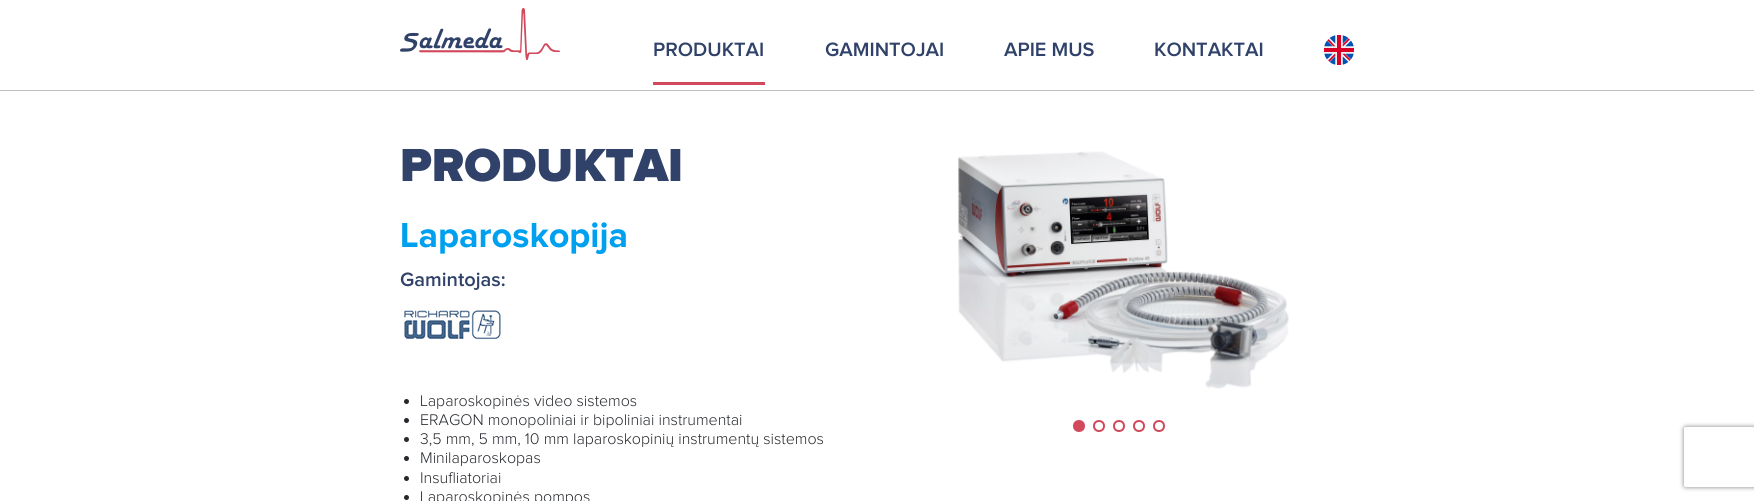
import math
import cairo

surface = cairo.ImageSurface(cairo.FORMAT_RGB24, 1754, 501)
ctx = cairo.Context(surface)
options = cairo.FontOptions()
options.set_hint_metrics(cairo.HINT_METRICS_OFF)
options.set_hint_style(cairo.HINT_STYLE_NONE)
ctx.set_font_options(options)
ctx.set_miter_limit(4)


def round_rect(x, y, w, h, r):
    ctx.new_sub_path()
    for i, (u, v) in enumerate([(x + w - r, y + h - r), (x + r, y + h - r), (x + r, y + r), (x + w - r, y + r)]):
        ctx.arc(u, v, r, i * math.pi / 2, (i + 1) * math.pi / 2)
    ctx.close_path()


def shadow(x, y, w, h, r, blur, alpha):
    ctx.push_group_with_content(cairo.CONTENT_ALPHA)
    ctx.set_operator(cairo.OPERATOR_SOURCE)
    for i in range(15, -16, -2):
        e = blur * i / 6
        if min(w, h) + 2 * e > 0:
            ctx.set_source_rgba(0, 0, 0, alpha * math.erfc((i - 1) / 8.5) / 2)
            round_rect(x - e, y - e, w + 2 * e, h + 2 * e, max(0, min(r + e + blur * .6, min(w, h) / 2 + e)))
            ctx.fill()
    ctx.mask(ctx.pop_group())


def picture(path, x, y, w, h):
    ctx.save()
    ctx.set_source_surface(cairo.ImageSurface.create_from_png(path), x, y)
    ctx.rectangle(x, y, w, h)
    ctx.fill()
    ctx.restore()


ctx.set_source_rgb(1, 1, 1)
ctx.paint()
ctx.set_source_rgb(0.737, 0.745, 0.753)
ctx.rectangle(0, 90, 1754, 1)
ctx.fill()
picture("img1.png", 400, 8, 160, 52)
ctx.set_source_rgb(0.82, 0.286, 0.357)
ctx.rectangle(653, 82, 112, 3)
ctx.fill()
ctx.select_font_face("Proxima Nova SemiBold")
ctx.set_font_size(20)
ctx.set_source_rgb(0.188, 0.259, 0.412)
ctx.move_to(653, 56)
ctx.show_text("PRODUKTAI")
ctx.move_to(825, 56)
ctx.show_text("GAMINTOJAI")
ctx.move_to(1004, 56)
ctx.show_text("APIE MUS")
ctx.move_to(1154, 56)
ctx.show_text("KONTAKTAI")
picture("img2.png", 1324, 35, 30, 30)
ctx.select_font_face("Proxima Nova Black")
ctx.set_font_size(48)
ctx.move_to(400, 181)
ctx.show_text("PRODUKTAI")
ctx.select_font_face("Proxima Nova", cairo.FONT_SLANT_NORMAL, cairo.FONT_WEIGHT_BOLD)
ctx.set_font_size(36)
ctx.set_source_rgb(0, 0.627, 0.941)
ctx.move_to(400, 247)
ctx.show_text("Laparoskopija")
ctx.select_font_face("Proxima Nova SemiBold")
ctx.set_font_size(20)
ctx.set_source_rgb(0.188, 0.259, 0.412)
ctx.move_to(400, 286)
ctx.show_text("Gamintojas:")
picture("img3.png", 404, 310, 99, 30)
ctx.set_source_rgb(0.145, 0.157, 0.176)
ctx.arc(406.5, 401.5, 2.5, 0, 2 * math.pi)
ctx.fill()
ctx.select_font_face("Proxima Nova Light")
ctx.set_font_size(16)
ctx.move_to(420, 406)
ctx.show_text("Laparoskopinės video sistemos")
ctx.new_path()
ctx.arc(406.5, 420.5, 2.5, 0, 2 * math.pi)
ctx.fill()
ctx.move_to(420, 425)
ctx.show_text("ERAGON monopoliniai ir bipoliniai instrumentai")
ctx.new_path()
ctx.arc(406.5, 439.5, 2.5, 0, 2 * math.pi)
ctx.fill()
ctx.move_to(420, 444)
ctx.show_text("3,5 mm, 5 mm, 10 mm laparoskopinių instrumentų sistemos")
ctx.new_path()
ctx.arc(406.5, 458.5, 2.5, 0, 2 * math.pi)
ctx.fill()
ctx.move_to(420, 463)
ctx.show_text("Minilaparoskopas")
ctx.new_path()
ctx.arc(406.5, 478.5, 2.5, 0, 2 * math.pi)
ctx.fill()
ctx.move_to(420, 483)
ctx.show_text("Insufliatoriai")
ctx.new_path()
ctx.arc(406.5, 497.5, 2.5, 0, 2 * math.pi)
ctx.fill()
ctx.move_to(420, 502)
ctx.show_text("Laparoskopinės pompos")
picture("img4.png", 958, 151, 331, 238)
ctx.set_source_rgb(0.82, 0.286, 0.357)
ctx.arc(1079, 426, 5, 0, 2 * math.pi)
ctx.fill_preserve()
ctx.stroke()
ctx.arc(1099, 426, 5, 0, 2 * math.pi)
ctx.stroke()
ctx.arc(1119, 426, 5, 0, 2 * math.pi)
ctx.stroke()
ctx.arc(1139, 426, 5, 0, 2 * math.pi)
ctx.stroke()
ctx.arc(1159, 426, 5, 0, 2 * math.pi)
ctx.stroke()
ctx.save()
ctx.set_fill_rule(cairo.FILL_RULE_EVEN_ODD)
ctx.new_path()
ctx.move_to(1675, 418)
ctx.line_to(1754, 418)
ctx.line_to(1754, 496)
ctx.line_to(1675, 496)
ctx.close_path()
ctx.move_to(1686, 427)
ctx.line_to(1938, 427)
ctx.curve_to(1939, 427, 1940, 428, 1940, 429)
ctx.line_to(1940, 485)
ctx.curve_to(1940, 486, 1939, 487, 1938, 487)
ctx.line_to(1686, 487)
ctx.curve_to(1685, 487, 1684, 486, 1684, 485)
ctx.line_to(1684, 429)
ctx.curve_to(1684, 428, 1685, 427, 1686, 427)
ctx.close_path()
ctx.clip()
ctx.set_source_rgb(0.502, 0.502, 0.502)
shadow(1684, 427, 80, 60, 2, 2.5, 1)
ctx.restore()
surface.write_to_png("page.png")
